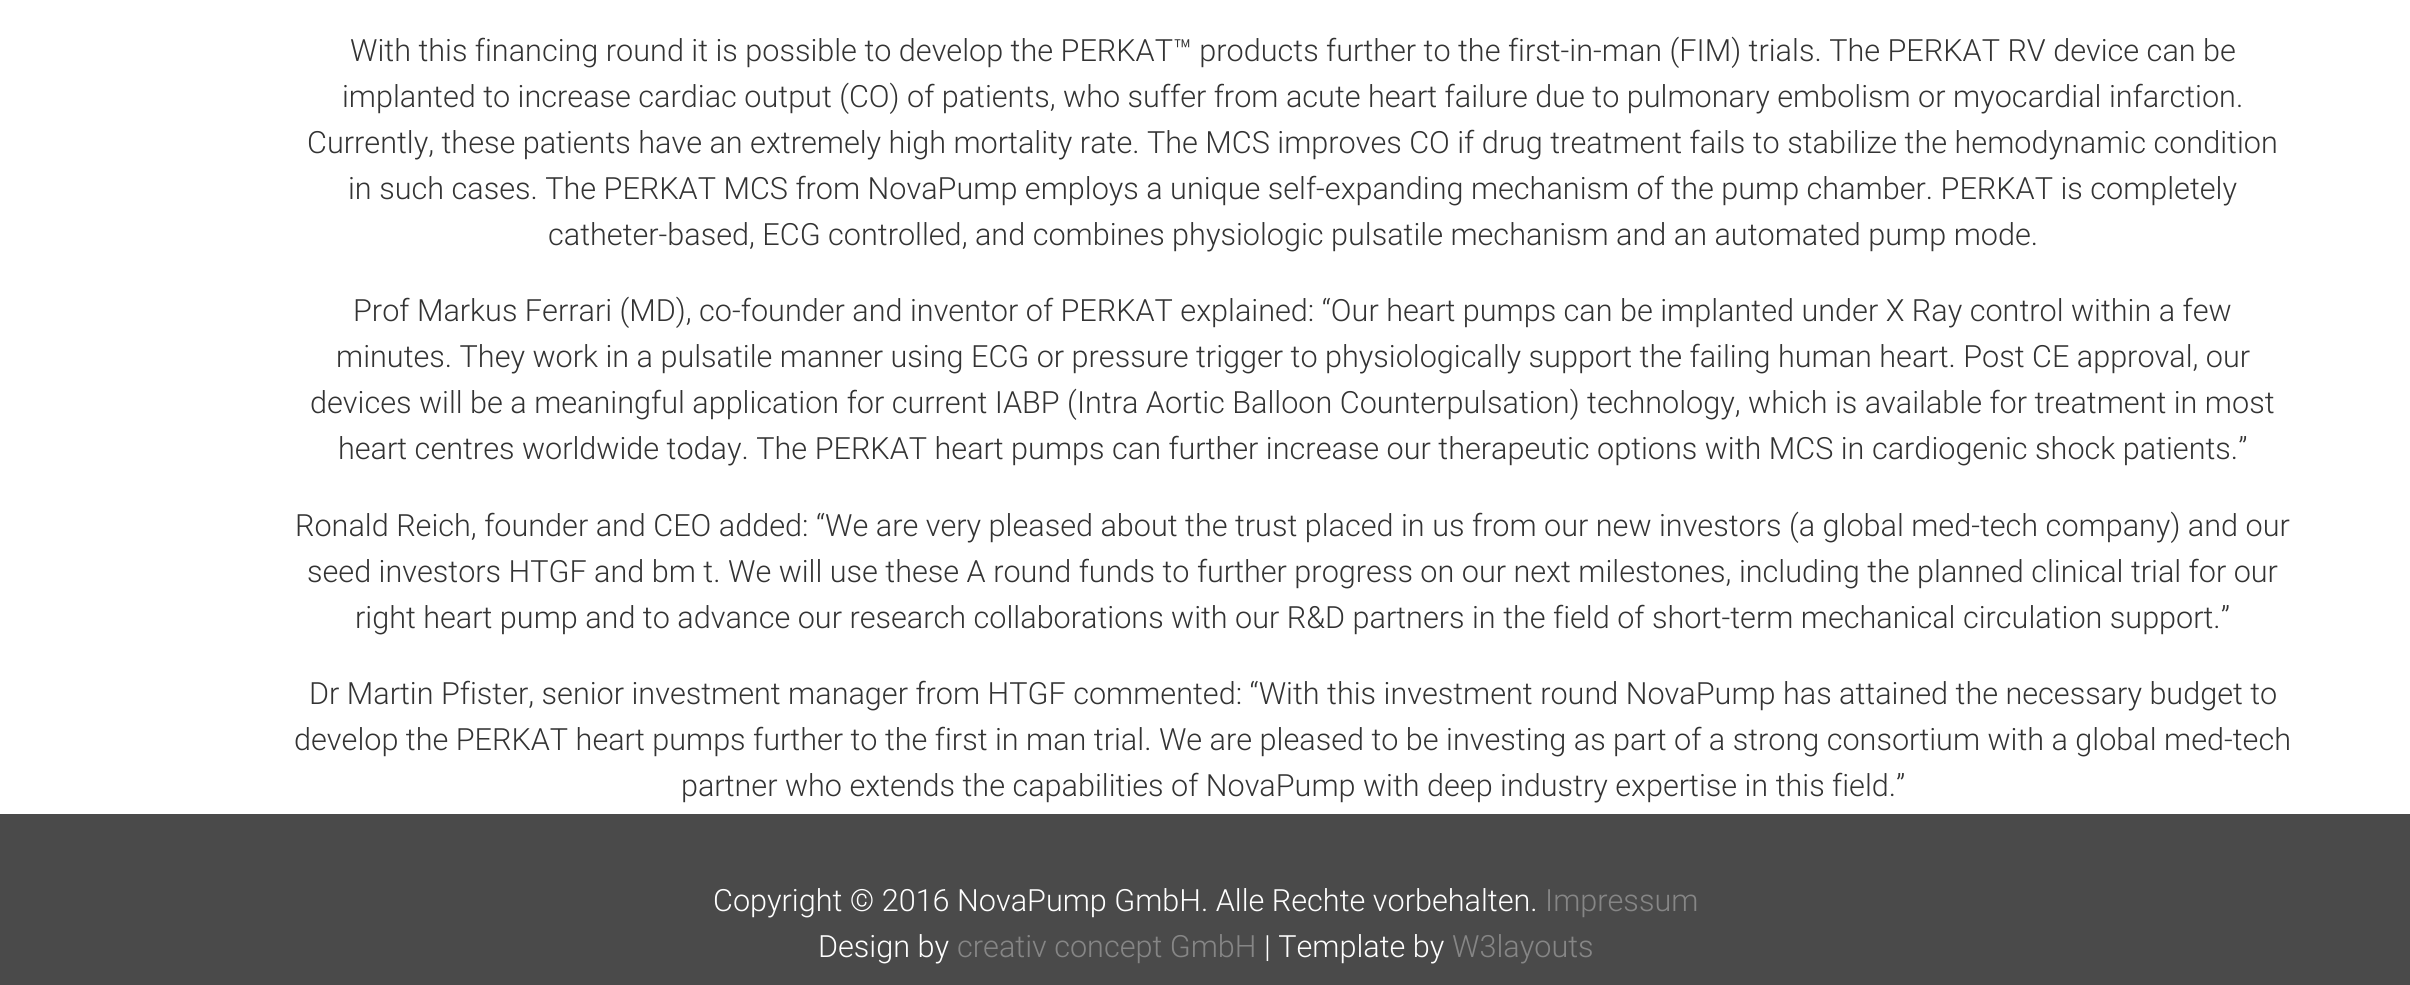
import math
import cairo

surface = cairo.ImageSurface(cairo.FORMAT_RGB24, 2410, 985)
ctx = cairo.Context(surface)
options = cairo.FontOptions()
options.set_hint_metrics(cairo.HINT_METRICS_OFF)
options.set_hint_style(cairo.HINT_STYLE_NONE)
ctx.set_font_options(options)
ctx.set_miter_limit(4)


ctx.set_source_rgb(1, 1, 1)
ctx.paint()
ctx.select_font_face("Roboto Light")
ctx.set_font_size(30.62)
ctx.set_source_rgb(0.2, 0.2, 0.2)
ctx.move_to(350, 61)
ctx.show_text("With this financing round it is possible to develop the PERKAT™ products further to the first-in-man (FIM) trials. The PERKAT RV device can be")
ctx.move_to(342, 107)
ctx.show_text("implanted to increase cardiac output (CO) of patients, who suffer from acute heart failure due to pulmonary embolism or myocardial infarction.")
ctx.move_to(307, 153)
ctx.show_text("Currently, these patients have an extremely high mortality rate. The MCS improves CO if drug treatment fails to stabilize the hemodynamic condition")
ctx.move_to(348, 199)
ctx.show_text("in such cases. The PERKAT MCS from NovaPump employs a unique self-expanding mechanism of the pump chamber. PERKAT is completely")
ctx.move_to(548, 245)
ctx.show_text("catheter-based, ECG controlled, and combines physiologic pulsatile mechanism and an automated pump mode.")
ctx.move_to(353, 321)
ctx.show_text("Prof Markus Ferrari (MD), co-founder and inventor of PERKAT explained: “Our heart pumps can be implanted under X Ray control within a few")
ctx.move_to(336, 367)
ctx.show_text("minutes. They work in a pulsatile manner using ECG or pressure trigger to physiologically support the failing human heart. Post CE approval, our")
ctx.move_to(310, 413)
ctx.show_text("devices will be a meaningful application for current IABP (Intra Aortic Balloon Counterpulsation) technology, which is available for treatment in most")
ctx.move_to(338, 459)
ctx.show_text("heart centres worldwide today. The PERKAT heart pumps can further increase our therapeutic options with MCS in cardiogenic shock patients.”")
ctx.move_to(295, 536)
ctx.show_text("Ronald Reich, founder and CEO added: “We are very pleased about the trust placed in us from our new investors (a global med-tech company) and our")
ctx.move_to(307, 582)
ctx.show_text("seed investors HTGF and bm t. We will use these A round funds to further progress on our next milestones, including the planned clinical trial for our")
ctx.move_to(355, 628)
ctx.show_text("right heart pump and to advance our research collaborations with our R&D partners in the field of short-term mechanical circulation support.”")
ctx.move_to(309, 704)
ctx.show_text("Dr Martin Pfister, senior investment manager from HTGF commented: “With this investment round NovaPump has attained the necessary budget to")
ctx.move_to(294, 750)
ctx.show_text("develop the PERKAT heart pumps further to the first in man trial. We are pleased to be investing as part of a strong consortium with a global med-tech")
ctx.move_to(681, 796)
ctx.show_text("partner who extends the capabilities of NovaPump with deep industry expertise in this field.”")
ctx.set_source_rgb(0.29, 0.29, 0.29)
ctx.rectangle(0, 814, 2410, 171)
ctx.fill()
ctx.set_source_rgb(1, 1, 1)
ctx.move_to(713, 911)
ctx.show_text("Copyright © 2016 NovaPump GmbH. Alle Rechte vorbehalten.")
ctx.set_source_rgb(0.525, 0.525, 0.525)
ctx.move_to(1545, 911)
ctx.show_text("Impressum")
ctx.set_source_rgb(1, 1, 1)
ctx.move_to(818, 957)
ctx.show_text("Design by")
ctx.set_source_rgb(0.525, 0.525, 0.525)
ctx.move_to(957, 957)
ctx.show_text("creativ concept GmbH")
ctx.set_source_rgb(1, 1, 1)
ctx.move_to(1264, 957)
ctx.show_text("| Template by")
ctx.set_source_rgb(0.525, 0.525, 0.525)
ctx.move_to(1452, 957)
ctx.show_text("W3layouts")
surface.write_to_png("page.png")
